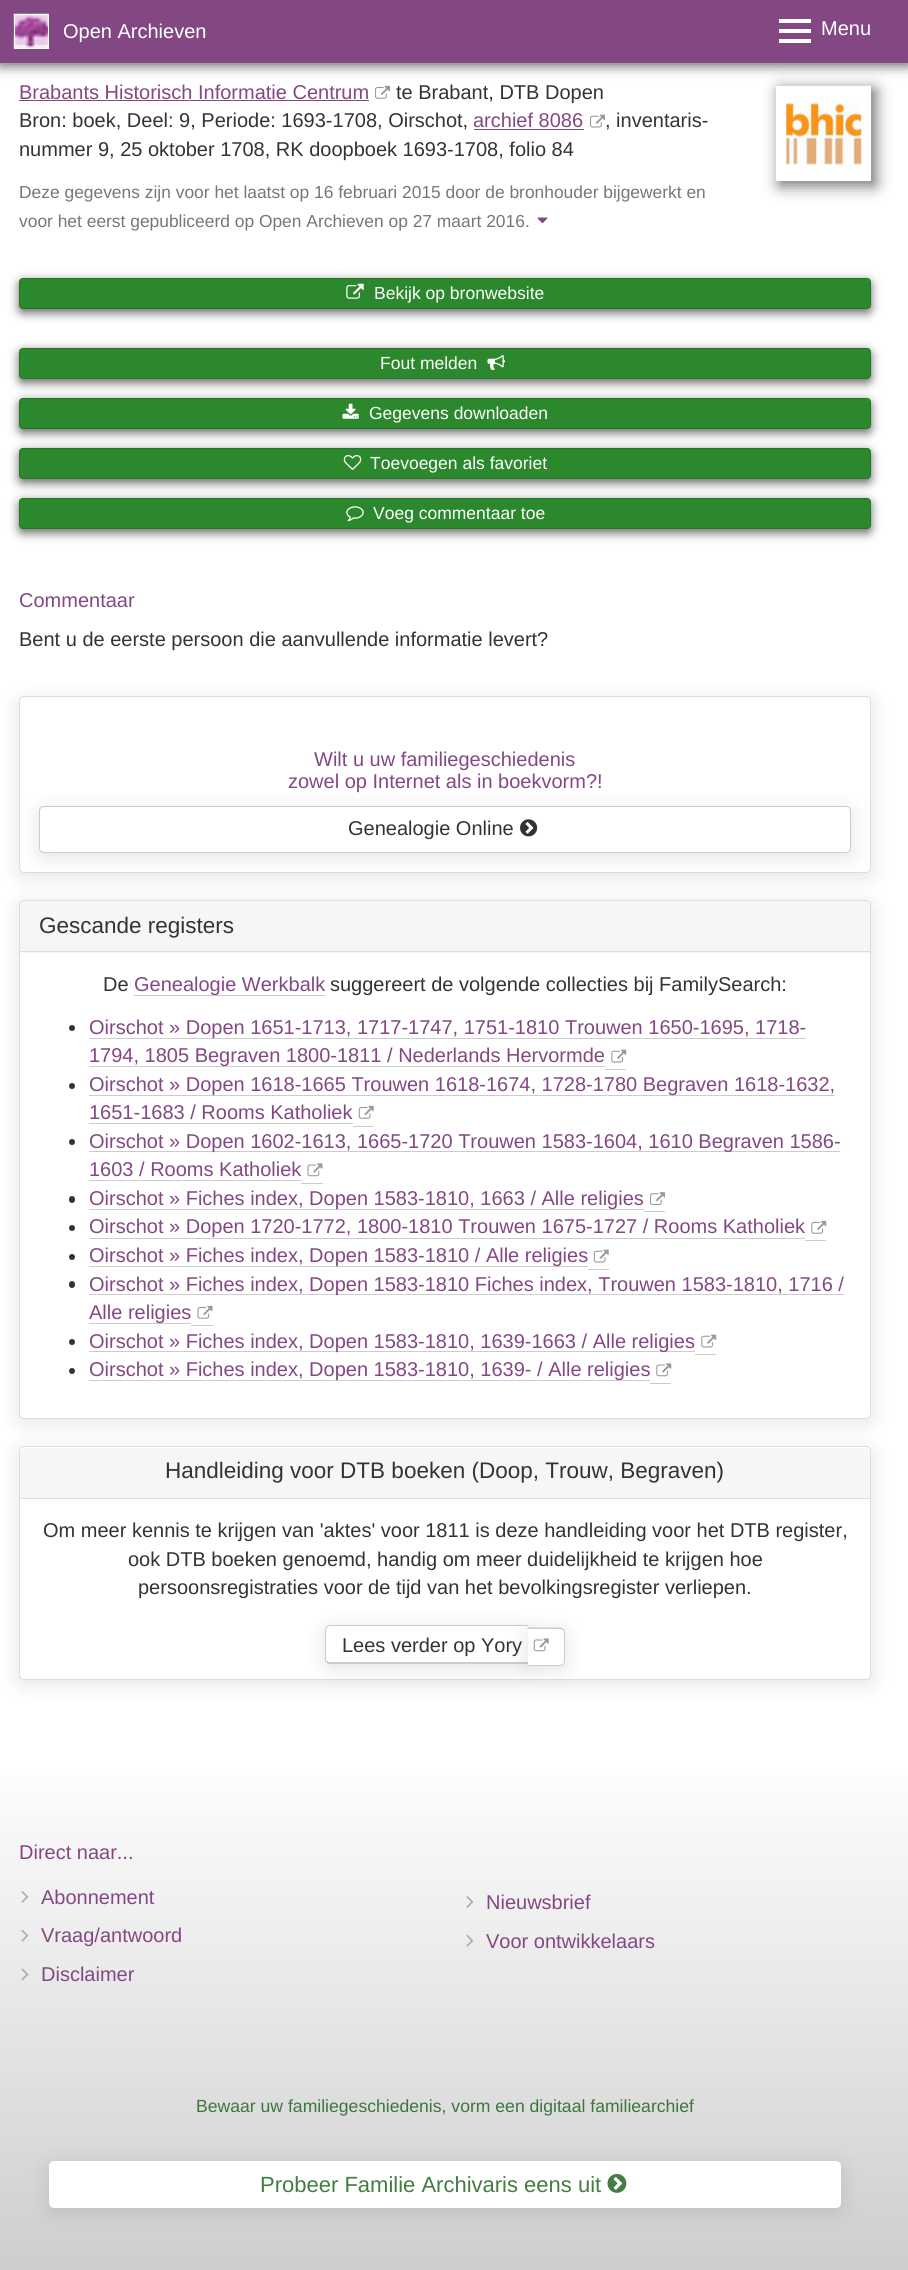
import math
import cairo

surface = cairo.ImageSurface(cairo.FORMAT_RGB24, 908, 2270)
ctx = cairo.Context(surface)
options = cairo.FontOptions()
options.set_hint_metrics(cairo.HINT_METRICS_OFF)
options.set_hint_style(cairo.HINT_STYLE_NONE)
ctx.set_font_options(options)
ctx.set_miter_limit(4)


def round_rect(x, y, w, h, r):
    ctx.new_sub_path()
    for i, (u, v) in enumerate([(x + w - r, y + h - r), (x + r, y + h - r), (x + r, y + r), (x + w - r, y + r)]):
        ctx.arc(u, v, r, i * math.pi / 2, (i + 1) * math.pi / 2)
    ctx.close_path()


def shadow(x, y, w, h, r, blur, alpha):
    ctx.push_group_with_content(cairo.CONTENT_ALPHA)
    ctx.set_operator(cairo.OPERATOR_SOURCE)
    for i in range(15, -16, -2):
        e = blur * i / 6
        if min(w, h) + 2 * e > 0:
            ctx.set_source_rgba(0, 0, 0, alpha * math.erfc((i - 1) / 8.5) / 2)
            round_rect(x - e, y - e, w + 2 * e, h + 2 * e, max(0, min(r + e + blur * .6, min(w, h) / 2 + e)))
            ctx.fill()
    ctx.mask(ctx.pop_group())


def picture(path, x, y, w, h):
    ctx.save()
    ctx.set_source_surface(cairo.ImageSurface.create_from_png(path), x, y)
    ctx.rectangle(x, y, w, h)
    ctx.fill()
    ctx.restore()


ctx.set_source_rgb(1, 1, 1)
ctx.paint()
ctx.set_source_rgb(0.196, 0.196, 0.196)
shadow(0, 4, 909, 62, 0, 6, 0.73)
ctx.set_source_rgb(0.514, 0.282, 0.518)
ctx.rectangle(0, 0, 908, 63)
ctx.fill()
picture("img1.png", 13, 13, 36, 36)
ctx.rectangle(14.5, 14.5, 34, 34)
ctx.set_source_rgb(1, 1, 1)
ctx.set_line_width(1)
ctx.stroke()
ctx.select_font_face("Liberation Sans")
ctx.set_font_size(20)
ctx.move_to(63, 38)
ctx.show_text("Open Archieven")
ctx.rectangle(779, 39, 32, 4)
ctx.fill()
ctx.rectangle(779, 19, 32, 4)
ctx.fill()
ctx.rectangle(779, 29, 32, 4)
ctx.fill()
ctx.move_to(821, 35)
ctx.show_text("Menu")
ctx.set_source_rgb(0.514, 0.282, 0.518)
ctx.move_to(19, 99)
ctx.show_text("Brabants Historisch Informatie Centrum")
ctx.rectangle(19, 100, 350, 1)
ctx.fill()
picture("img2.png", 375, 85, 15, 14)
ctx.set_source_rgb(0.2, 0.2, 0.2)
ctx.move_to(396, 99)
ctx.show_text("te Brabant, DTB Dopen")
ctx.move_to(19, 127)
ctx.show_text("Bron: boek, Deel: 9, Periode: 1693-1708, Oirschot,")
ctx.set_source_rgb(0.514, 0.282, 0.518)
ctx.move_to(473, 127)
ctx.show_text("archief 8086")
ctx.rectangle(474, 129, 110, 1)
ctx.fill()
picture("img3.png", 590, 114, 15, 14)
ctx.set_source_rgb(0.2, 0.2, 0.2)
ctx.move_to(605, 127)
ctx.show_text(", inventaris-")
ctx.move_to(19, 156)
ctx.show_text("nummer 9, 25 oktober 1708, RK doopboek 1693-1708, folio 84")
ctx.set_source_rgb(0.196, 0.196, 0.196)
shadow(780, 90, 95, 95, 0, 8, 0.75)
ctx.set_source_rgb(1, 1, 1)
ctx.rectangle(776, 86, 95, 95)
ctx.fill()
picture("img4.png", 786, 102, 76, 64)
ctx.set_font_size(17.4)
ctx.set_source_rgb(0.467, 0.467, 0.467)
ctx.move_to(19, 198)
ctx.show_text("Deze gegevens zijn voor het laatst op 16 februari 2015 door de bronhouder bijgewerkt en")
ctx.move_to(19, 227)
ctx.show_text("voor het eerst gepubliceerd op Open Archieven op 27 maart 2016.")
picture("img5.png", 537, 217, 11, 7)
ctx.set_source_rgb(0.196, 0.196, 0.196)
shadow(19, 281, 852, 32, 4, 5, 0.73)
ctx.set_source_rgb(0.173, 0.533, 0.173)
round_rect(19.5, 278.5, 851, 30, 3.5)
ctx.fill_preserve()
ctx.set_source_rgb(0.149, 0.459, 0.149)
ctx.stroke()
picture("img6.png", 346, 283, 18, 16)
ctx.set_font_size(17.5)
ctx.set_source_rgb(1, 1, 1)
ctx.move_to(374, 299)
ctx.show_text("Bekijk op bronwebsite")
ctx.set_source_rgb(0.196, 0.196, 0.196)
shadow(19, 351, 852, 32, 4, 5, 0.73)
ctx.set_source_rgb(0.173, 0.533, 0.173)
round_rect(19.5, 348.5, 851, 30, 3.5)
ctx.fill_preserve()
ctx.set_source_rgb(0.149, 0.459, 0.149)
ctx.stroke()
ctx.set_source_rgb(1, 1, 1)
ctx.move_to(380, 369)
ctx.show_text("Fout melden")
picture("img7.png", 487, 355, 18, 15)
ctx.set_source_rgb(0.196, 0.196, 0.196)
shadow(19, 401, 852, 32, 4, 5, 0.73)
ctx.set_source_rgb(0.173, 0.533, 0.173)
round_rect(19.5, 398.5, 851, 30, 3.5)
ctx.fill_preserve()
ctx.set_source_rgb(0.149, 0.459, 0.149)
ctx.stroke()
picture("img8.png", 342, 403, 17, 16)
ctx.set_source_rgb(1, 1, 1)
ctx.move_to(369, 419)
ctx.show_text("Gegevens downloaden")
ctx.set_source_rgb(0.196, 0.196, 0.196)
shadow(19, 451, 852, 32, 4, 5, 0.73)
ctx.set_source_rgb(0.173, 0.533, 0.173)
round_rect(19.5, 448.5, 851, 30, 3.5)
ctx.fill_preserve()
ctx.set_source_rgb(0.149, 0.459, 0.149)
ctx.stroke()
picture("img9.png", 343, 455, 19, 15)
ctx.set_source_rgb(1, 1, 1)
ctx.move_to(370, 469)
ctx.show_text("Toevoegen als favoriet")
ctx.set_source_rgb(0.196, 0.196, 0.196)
shadow(19, 501, 852, 32, 4, 5, 0.73)
ctx.set_source_rgb(0.173, 0.533, 0.173)
round_rect(19.5, 498.5, 851, 30, 3.5)
ctx.fill_preserve()
ctx.set_source_rgb(0.149, 0.459, 0.149)
ctx.stroke()
picture("img10.png", 346, 506, 18, 16)
ctx.set_source_rgb(1, 1, 1)
ctx.move_to(373, 519)
ctx.show_text("Voeg commentaar toe")
ctx.set_font_size(20)
ctx.set_source_rgb(0.514, 0.282, 0.518)
ctx.move_to(19, 607)
ctx.show_text("Commentaar")
ctx.set_source_rgb(0.2, 0.2, 0.2)
ctx.move_to(19, 646)
ctx.show_text("Bent u de eerste persoon die aanvullende informatie levert?")
ctx.set_source_rgb(0, 0, 0)
shadow(18, 699, 855, 179, 6, 9.5, 0.1)
ctx.set_source_rgb(1, 1, 1)
round_rect(19.5, 696.5, 851, 176, 4.5)
ctx.fill_preserve()
ctx.set_source_rgb(0.867, 0.867, 0.867)
ctx.stroke()
ctx.set_source_rgb(0.514, 0.282, 0.518)
ctx.move_to(314, 766)
ctx.show_text("Wilt u uw familiegeschiedenis")
ctx.set_source_rgb(0, 0, 0)
shadow(38, 809, 815, 49, 6, 9.5, 0.1)
ctx.set_source_rgb(0.514, 0.282, 0.518)
ctx.move_to(288, 788)
ctx.show_text("zowel op Internet als in boekvorm?!")
ctx.set_source_rgb(1, 1, 1)
round_rect(39.5, 806.5, 811, 46, 4.5)
ctx.fill_preserve()
ctx.set_source_rgb(0.8, 0.8, 0.8)
ctx.stroke()
ctx.set_source_rgb(0.2, 0.2, 0.2)
ctx.move_to(348, 835)
ctx.show_text("Genealogie Online")
picture("img11.png", 520, 819, 18, 18)
ctx.set_source_rgb(0, 0, 0)
shadow(18, 903, 855, 521, 6, 9.5, 0.1)
ctx.set_source_rgb(1, 1, 1)
round_rect(19.5, 900.5, 851, 518, 4.5)
ctx.fill_preserve()
ctx.set_source_rgb(0.867, 0.867, 0.867)
ctx.stroke()
ctx.set_source_rgb(0.961, 0.961, 0.961)
ctx.new_path()
ctx.move_to(24, 901)
ctx.line_to(866, 901)
ctx.curve_to(868, 901, 870, 903, 870, 905)
ctx.line_to(870, 953)
ctx.line_to(20, 953)
ctx.line_to(20, 905)
ctx.curve_to(20, 903, 22, 901, 24, 901)
ctx.close_path()
ctx.fill()
ctx.set_source_rgb(0.867, 0.867, 0.867)
ctx.rectangle(20, 951, 850, 1)
ctx.fill()
ctx.set_font_size(22.5)
ctx.set_source_rgb(0.2, 0.2, 0.2)
ctx.move_to(39, 933)
ctx.show_text("Gescande registers")
ctx.set_font_size(20)
ctx.move_to(103, 991)
ctx.show_text("De")
ctx.set_source_rgb(0.8, 0.8, 0.8)
ctx.rectangle(134, 995, 191, 1)
ctx.fill()
ctx.set_source_rgb(0.514, 0.282, 0.518)
ctx.move_to(134, 991)
ctx.show_text("Genealogie Werkbalk")
ctx.set_source_rgb(0.2, 0.2, 0.2)
ctx.move_to(330, 991)
ctx.show_text("suggereert de volgende collecties bij FamilySearch:")
ctx.new_path()
ctx.arc(72, 1028, 3, 0, 2 * math.pi)
ctx.fill()
ctx.set_source_rgb(0.8, 0.8, 0.8)
ctx.rectangle(89, 1038, 717, 1)
ctx.fill()
ctx.rectangle(89, 1066, 516, 1)
ctx.fill()
ctx.rectangle(605, 1069, 21, 1)
ctx.fill()
ctx.set_source_rgb(0.514, 0.282, 0.518)
ctx.move_to(89, 1034)
ctx.show_text("Oirschot » Dopen 1651-1713, 1717-1747, 1751-1810 Trouwen 1650-1695, 1718-")
ctx.move_to(89, 1062)
ctx.show_text("1794, 1805 Begraven 1800-1811 / Nederlands Hervormde")
picture("img12.png", 611, 1049, 16, 14)
ctx.set_source_rgb(0.2, 0.2, 0.2)
ctx.arc(72, 1086, 3, 0, 2 * math.pi)
ctx.fill()
ctx.set_source_rgb(0.8, 0.8, 0.8)
ctx.rectangle(89, 1095, 746, 1)
ctx.fill()
ctx.rectangle(89, 1123, 264, 1)
ctx.fill()
ctx.rectangle(353, 1126, 21, 1)
ctx.fill()
ctx.set_source_rgb(0.514, 0.282, 0.518)
ctx.move_to(89, 1091)
ctx.show_text("Oirschot » Dopen 1618-1665 Trouwen 1618-1674, 1728-1780 Begraven 1618-1632,")
ctx.move_to(89, 1119)
ctx.show_text("1651-1683 / Rooms Katholiek")
picture("img13.png", 358, 1105, 16, 14)
ctx.set_source_rgb(0.2, 0.2, 0.2)
ctx.arc(72, 1142, 3, 0, 2 * math.pi)
ctx.fill()
ctx.set_source_rgb(0.8, 0.8, 0.8)
ctx.rectangle(89, 1151, 751, 1)
ctx.fill()
ctx.rectangle(89, 1180, 212, 1)
ctx.fill()
ctx.rectangle(301, 1183, 22, 1)
ctx.fill()
ctx.set_source_rgb(0.514, 0.282, 0.518)
ctx.move_to(89, 1148)
ctx.show_text("Oirschot » Dopen 1602-1613, 1665-1720 Trouwen 1583-1604, 1610 Begraven 1586-")
ctx.move_to(89, 1176)
ctx.show_text("1603 / Rooms Katholiek")
picture("img14.png", 307, 1163, 16, 14)
ctx.set_source_rgb(0.2, 0.2, 0.2)
round_rect(69, 1196, 6, 7, 3)
ctx.fill()
ctx.set_source_rgb(0.8, 0.8, 0.8)
ctx.rectangle(89, 1209, 555, 1)
ctx.fill()
ctx.rectangle(644, 1211, 21, 1)
ctx.fill()
ctx.set_source_rgb(0.514, 0.282, 0.518)
ctx.move_to(89, 1205)
ctx.show_text("Oirschot » Fiches index, Dopen 1583-1810, 1663 / Alle religies")
picture("img15.png", 650, 1192, 15, 13)
ctx.set_source_rgb(0.2, 0.2, 0.2)
ctx.arc(72, 1228, 3, 0, 2 * math.pi)
ctx.fill()
ctx.set_source_rgb(0.8, 0.8, 0.8)
ctx.rectangle(89, 1238, 716, 1)
ctx.fill()
ctx.rectangle(805, 1240, 21, 1)
ctx.fill()
ctx.set_source_rgb(0.514, 0.282, 0.518)
ctx.move_to(89, 1233)
ctx.show_text("Oirschot » Dopen 1720-1772, 1800-1810 Trouwen 1675-1727 / Rooms Katholiek")
picture("img16.png", 811, 1220, 16, 14)
ctx.set_source_rgb(0.2, 0.2, 0.2)
ctx.arc(72, 1257, 3, 0, 2 * math.pi)
ctx.fill()
ctx.set_source_rgb(0.8, 0.8, 0.8)
ctx.rectangle(89, 1266, 499, 1)
ctx.fill()
ctx.rectangle(588, 1269, 21, 1)
ctx.fill()
ctx.set_source_rgb(0.514, 0.282, 0.518)
ctx.move_to(89, 1262)
ctx.show_text("Oirschot » Fiches index, Dopen 1583-1810 / Alle religies")
picture("img17.png", 593, 1249, 16, 14)
ctx.set_source_rgb(0.2, 0.2, 0.2)
round_rect(69, 1281, 6, 7, 3)
ctx.fill()
ctx.set_source_rgb(0.8, 0.8, 0.8)
ctx.rectangle(89, 1294, 755, 1)
ctx.fill()
ctx.rectangle(89, 1323, 102, 1)
ctx.fill()
ctx.rectangle(191, 1325, 22, 1)
ctx.fill()
ctx.set_source_rgb(0.514, 0.282, 0.518)
ctx.move_to(89, 1291)
ctx.show_text("Oirschot » Fiches index, Dopen 1583-1810 Fiches index, Trouwen 1583-1810, 1716 /")
ctx.move_to(89, 1319)
ctx.show_text("Alle religies")
picture("img18.png", 197, 1305, 16, 14)
ctx.set_source_rgb(0.2, 0.2, 0.2)
ctx.arc(72, 1342, 3, 0, 2 * math.pi)
ctx.fill()
ctx.set_source_rgb(0.8, 0.8, 0.8)
ctx.rectangle(89, 1351, 606, 1)
ctx.fill()
ctx.rectangle(695, 1354, 21, 1)
ctx.fill()
ctx.set_source_rgb(0.514, 0.282, 0.518)
ctx.move_to(89, 1348)
ctx.show_text("Oirschot » Fiches index, Dopen 1583-1810, 1639-1663 / Alle religies")
picture("img12.png", 701, 1334, 16, 14)
ctx.set_source_rgb(0.2, 0.2, 0.2)
ctx.arc(72, 1371, 3, 0, 2 * math.pi)
ctx.fill()
ctx.set_source_rgb(0.8, 0.8, 0.8)
ctx.rectangle(89, 1380, 561, 1)
ctx.fill()
ctx.rectangle(650, 1383, 21, 1)
ctx.fill()
ctx.set_source_rgb(0.514, 0.282, 0.518)
ctx.move_to(89, 1376)
ctx.show_text("Oirschot » Fiches index, Dopen 1583-1810, 1639- / Alle religies")
picture("img19.png", 656, 1363, 16, 14)
ctx.set_source_rgb(0, 0, 0)
shadow(18, 1449, 855, 236, 6, 9.5, 0.1)
ctx.set_source_rgb(1, 1, 1)
round_rect(19.5, 1446.5, 851, 233, 4.5)
ctx.fill_preserve()
ctx.set_source_rgb(0.867, 0.867, 0.867)
ctx.stroke()
ctx.set_source_rgb(0.961, 0.961, 0.961)
ctx.new_path()
ctx.move_to(24, 1448)
ctx.line_to(866, 1448)
ctx.curve_to(868, 1448, 870, 1450, 870, 1452)
ctx.line_to(870, 1499)
ctx.line_to(20, 1499)
ctx.line_to(20, 1452)
ctx.curve_to(20, 1450, 22, 1448, 24, 1448)
ctx.close_path()
ctx.fill()
ctx.set_source_rgb(0.867, 0.867, 0.867)
ctx.rectangle(20, 1498, 850, 1)
ctx.fill()
ctx.set_font_size(22.5)
ctx.set_source_rgb(0.2, 0.2, 0.2)
ctx.move_to(165, 1478)
ctx.show_text("Handleiding voor DTB boeken (Doop, Trouw, Begraven)")
ctx.set_font_size(20)
ctx.move_to(43, 1537)
ctx.show_text("Om meer kennis te krijgen van 'aktes' voor 1811 is deze handleiding voor het DTB register,")
ctx.move_to(128, 1566)
ctx.show_text("ook DTB boeken genoemd, handig om meer duidelijkheid te krijgen hoe")
ctx.move_to(138, 1594)
ctx.show_text("persoonsregistraties voor de tijd van het bevolkingsregister verliepen.")
ctx.set_source_rgb(0, 0, 0)
shadow(324, 1628, 205, 41, 6, 9.5, 0.1)
ctx.set_source_rgb(1, 1, 1)
ctx.new_path()
ctx.move_to(330, 1625)
ctx.line_to(528, 1625)
ctx.line_to(528, 1664)
ctx.line_to(330, 1664)
ctx.curve_to(327, 1664, 325, 1662, 325, 1659)
ctx.line_to(325, 1630)
ctx.curve_to(325, 1627, 327, 1625, 330, 1625)
ctx.close_path()
ctx.fill()
ctx.set_source_rgb(0.8, 0.8, 0.8)
ctx.set_fill_rule(cairo.FILL_RULE_EVEN_ODD)
ctx.new_path()
ctx.move_to(330, 1625)
ctx.line_to(528, 1625)
ctx.line_to(528, 1664)
ctx.line_to(330, 1664)
ctx.curve_to(327, 1664, 325, 1662, 325, 1659)
ctx.line_to(325, 1630)
ctx.curve_to(325, 1627, 327, 1625, 330, 1625)
ctx.close_path()
ctx.move_to(330, 1626)
ctx.line_to(528, 1626)
ctx.line_to(528, 1662)
ctx.line_to(330, 1662)
ctx.curve_to(328, 1662, 326, 1661, 326, 1659)
ctx.line_to(326, 1630)
ctx.curve_to(326, 1628, 328, 1626, 330, 1626)
ctx.close_path()
ctx.fill()
ctx.set_source_rgb(0, 0, 0)
shadow(526, 1630, 40, 41, 6, 9.5, 0.1)
ctx.set_source_rgb(1, 1, 1)
ctx.new_path()
ctx.move_to(528, 1628)
ctx.line_to(560, 1628)
ctx.curve_to(563, 1628, 565, 1630, 565, 1633)
ctx.line_to(565, 1661)
ctx.curve_to(565, 1664, 563, 1666, 560, 1666)
ctx.line_to(528, 1666)
ctx.close_path()
ctx.fill()
ctx.set_source_rgb(0.8, 0.8, 0.8)
ctx.new_path()
ctx.move_to(527.5, 1627.5)
ctx.line_to(560, 1627.5)
ctx.curve_to(563, 1627.5, 565, 1629.5, 565, 1632.5)
ctx.line_to(565, 1661)
ctx.curve_to(565, 1664, 563, 1666, 560, 1666)
ctx.line_to(527.5, 1666)
ctx.close_path()
ctx.move_to(527.5, 1629)
ctx.line_to(560, 1629)
ctx.curve_to(562, 1629, 564, 1630.5, 564, 1632.5)
ctx.line_to(564, 1661)
ctx.curve_to(564, 1663.5, 562, 1665, 560, 1665)
ctx.line_to(527.5, 1665)
ctx.close_path()
ctx.fill()
ctx.set_source_rgb(0.2, 0.2, 0.2)
ctx.move_to(342, 1652)
ctx.show_text("Lees verder op Yory")
picture("img20.png", 533, 1638, 16, 14)
gradient = cairo.LinearGradient(454, 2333, 454, 1748)
gradient.add_color_stop_rgba(0, 0.784, 0.784, 0.784, 1)
gradient.add_color_stop_rgba(1, 1, 1, 1, 1)
ctx.set_source(gradient)
ctx.rectangle(0, 1775, 908, 495)
ctx.fill()
ctx.set_source_rgb(0.514, 0.282, 0.518)
ctx.move_to(19, 1859)
ctx.show_text("Direct naar...")
picture("img21.png", 21, 1891, 8, 12)
ctx.move_to(41, 1904)
ctx.show_text("Abonnement")
picture("img22.png", 21, 1929, 8, 13)
ctx.move_to(41, 1942)
ctx.show_text("Vraag/antwoord")
picture("img23.png", 21, 1968, 8, 13)
ctx.move_to(41, 1981)
ctx.show_text("Disclaimer")
picture("img24.png", 466, 1896, 8, 12)
ctx.move_to(486, 1909)
ctx.show_text("Nieuwsbrief")
picture("img25.png", 466, 1934, 8, 13)
ctx.move_to(486, 1948)
ctx.show_text("Voor ontwikkelaars")
ctx.set_font_size(17.6)
ctx.set_source_rgb(0.239, 0.459, 0.239)
ctx.move_to(196, 2112)
ctx.show_text("Bewaar uw familiegeschiedenis, vorm een digitaal familiearchief")
ctx.set_source_rgb(0, 0, 0)
shadow(48, 2164, 795, 49, 6, 9.5, 0.1)
ctx.set_source_rgb(1, 1, 1)
round_rect(49, 2161, 792, 47, 5)
ctx.fill()
ctx.set_font_size(22)
ctx.set_source_rgb(0.267, 0.486, 0.267)
ctx.move_to(260, 2192)
ctx.show_text("Probeer Familie Archivaris eens uit")
picture("img26.png", 607, 2174, 20, 19)
surface.write_to_png("page.png")
